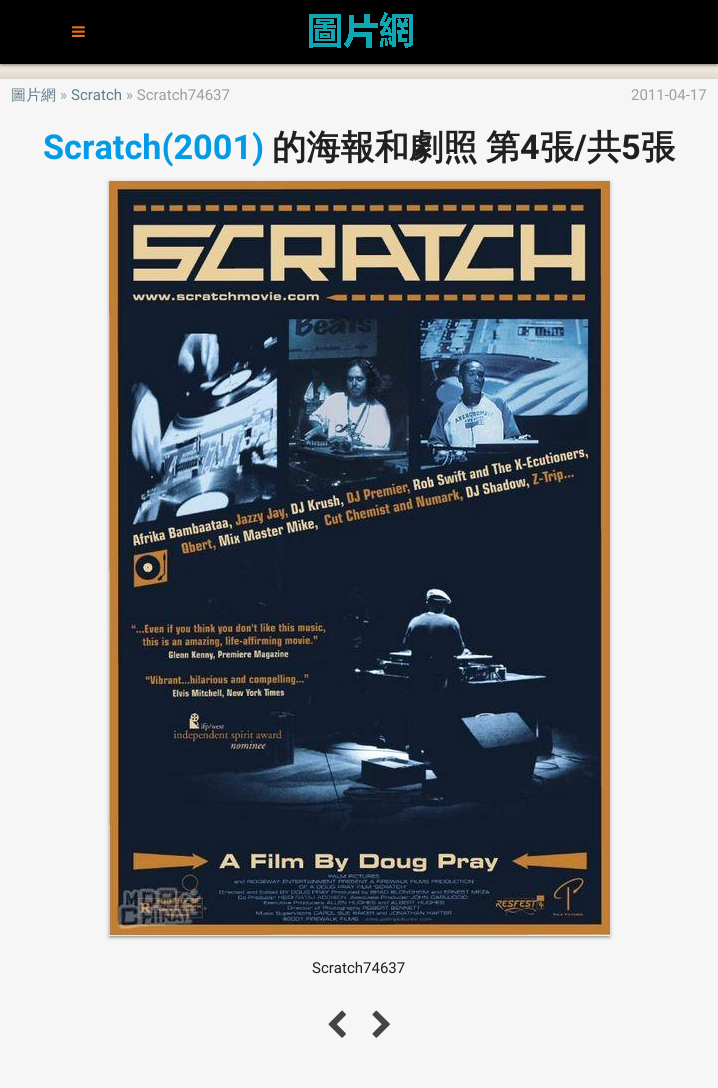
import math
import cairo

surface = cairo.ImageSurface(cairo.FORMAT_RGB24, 718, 1088)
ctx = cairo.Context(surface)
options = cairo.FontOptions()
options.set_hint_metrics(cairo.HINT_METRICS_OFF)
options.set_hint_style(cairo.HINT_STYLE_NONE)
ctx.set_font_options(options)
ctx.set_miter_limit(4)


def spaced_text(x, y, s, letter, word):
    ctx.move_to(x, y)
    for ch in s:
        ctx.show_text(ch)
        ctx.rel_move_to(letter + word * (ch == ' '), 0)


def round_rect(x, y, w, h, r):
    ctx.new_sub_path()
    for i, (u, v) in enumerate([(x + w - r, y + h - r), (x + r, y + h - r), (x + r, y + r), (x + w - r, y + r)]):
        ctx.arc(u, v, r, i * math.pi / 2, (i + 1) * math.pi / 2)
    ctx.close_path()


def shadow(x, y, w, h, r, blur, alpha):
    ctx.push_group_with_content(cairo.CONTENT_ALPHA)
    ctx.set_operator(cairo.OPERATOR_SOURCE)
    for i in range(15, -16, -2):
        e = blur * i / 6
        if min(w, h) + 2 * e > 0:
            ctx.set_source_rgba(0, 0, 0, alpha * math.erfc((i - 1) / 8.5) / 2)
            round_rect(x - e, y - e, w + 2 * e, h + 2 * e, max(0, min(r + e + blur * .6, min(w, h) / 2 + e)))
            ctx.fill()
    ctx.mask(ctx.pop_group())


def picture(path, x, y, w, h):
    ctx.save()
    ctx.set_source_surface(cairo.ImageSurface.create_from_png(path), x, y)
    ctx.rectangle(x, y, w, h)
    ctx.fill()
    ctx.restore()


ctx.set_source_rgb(0.933, 0.91, 0.871)
ctx.paint()
ctx.set_source_rgb(0, 0, 0)
shadow(0, 1, 718, 64, 0, 2.5, 0.2)
shadow(2, 5, 714, 60, 0, 0.5, 0.12)
shadow(0, 2, 718, 64, 0, 1, 0.14)
ctx.set_source_rgb(0, 0, 0)
ctx.rectangle(0, 0, 718, 64)
ctx.fill()
picture("img1.png", 72, 26, 13, 11)
picture("img2.png", 309, 12, 104, 36)
ctx.set_source_rgb(0, 0, 0)
shadow(-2, 80, 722, 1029, 0, 7, 0.12)
shadow(-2, 85, 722, 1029, 0, 8.5, 0.14)
ctx.set_source_rgb(0.961, 0.961, 0.961)
ctx.rectangle(0, 79, 718, 1009)
ctx.fill()
ctx.select_font_face("WenQuanYi Zen Hei Medium")
ctx.set_font_size(15)
ctx.set_source_rgb(0.376, 0.49, 0.545)
ctx.move_to(11, 100)
ctx.show_text("圖片網")
ctx.select_font_face("Roboto")
ctx.set_source_rgb(0.62, 0.62, 0.62)
ctx.move_to(60, 100)
ctx.show_text("»")
ctx.set_source_rgb(0.376, 0.49, 0.545)
ctx.move_to(71, 100)
ctx.show_text("Scratch")
ctx.set_source_rgb(0.62, 0.62, 0.62)
ctx.move_to(126, 100)
ctx.show_text("» Scratch74637")
ctx.move_to(631, 100)
ctx.show_text("2011-04-17")
ctx.select_font_face("Roboto", cairo.FONT_SLANT_NORMAL, cairo.FONT_WEIGHT_BOLD)
ctx.set_font_size(34.25)
ctx.set_source_rgb(0.012, 0.608, 0.898)
ctx.move_to(43, 159)
ctx.show_text("Scratch(2001)")
ctx.select_font_face("WenQuanYi Zen Hei", cairo.FONT_SLANT_NORMAL, cairo.FONT_WEIGHT_BOLD)
ctx.set_source_rgb(0.125, 0.125, 0.125)
spaced_text(272, 159, "的海報和劇照 第", 0, -2)
ctx.select_font_face("Roboto", cairo.FONT_SLANT_NORMAL, cairo.FONT_WEIGHT_BOLD)
ctx.move_to(520, 159)
ctx.show_text("4")
ctx.select_font_face("WenQuanYi Zen Hei", cairo.FONT_SLANT_NORMAL, cairo.FONT_WEIGHT_BOLD)
ctx.move_to(540, 159)
ctx.show_text("張")
ctx.select_font_face("Roboto", cairo.FONT_SLANT_NORMAL, cairo.FONT_WEIGHT_BOLD)
ctx.move_to(574, 159)
ctx.show_text("/")
ctx.select_font_face("WenQuanYi Zen Hei", cairo.FONT_SLANT_NORMAL, cairo.FONT_WEIGHT_BOLD)
ctx.move_to(587, 159)
ctx.show_text("共")
ctx.select_font_face("Roboto", cairo.FONT_SLANT_NORMAL, cairo.FONT_WEIGHT_BOLD)
ctx.move_to(621, 159)
ctx.show_text("5")
ctx.select_font_face("WenQuanYi Zen Hei", cairo.FONT_SLANT_NORMAL, cairo.FONT_WEIGHT_BOLD)
ctx.move_to(641, 159)
ctx.show_text("張")
ctx.set_source_rgb(0, 0, 0)
shadow(109, 182, 501, 755, 0, 2.5, 0.2)
shadow(109, 183, 501, 755, 0, 1, 0.14)
shadow(111, 186, 497, 751, 0, 0.5, 0.12)
picture("img3.png", 109, 181, 501, 755)
ctx.select_font_face("Roboto")
ctx.set_font_size(15)
ctx.set_source_rgb(0.125, 0.125, 0.125)
ctx.move_to(312, 973)
ctx.show_text("Scratch74637")
picture("img4.png", 328, 1010, 18, 28)
picture("img5.png", 372, 1010, 18, 28)
surface.write_to_png("page.png")
